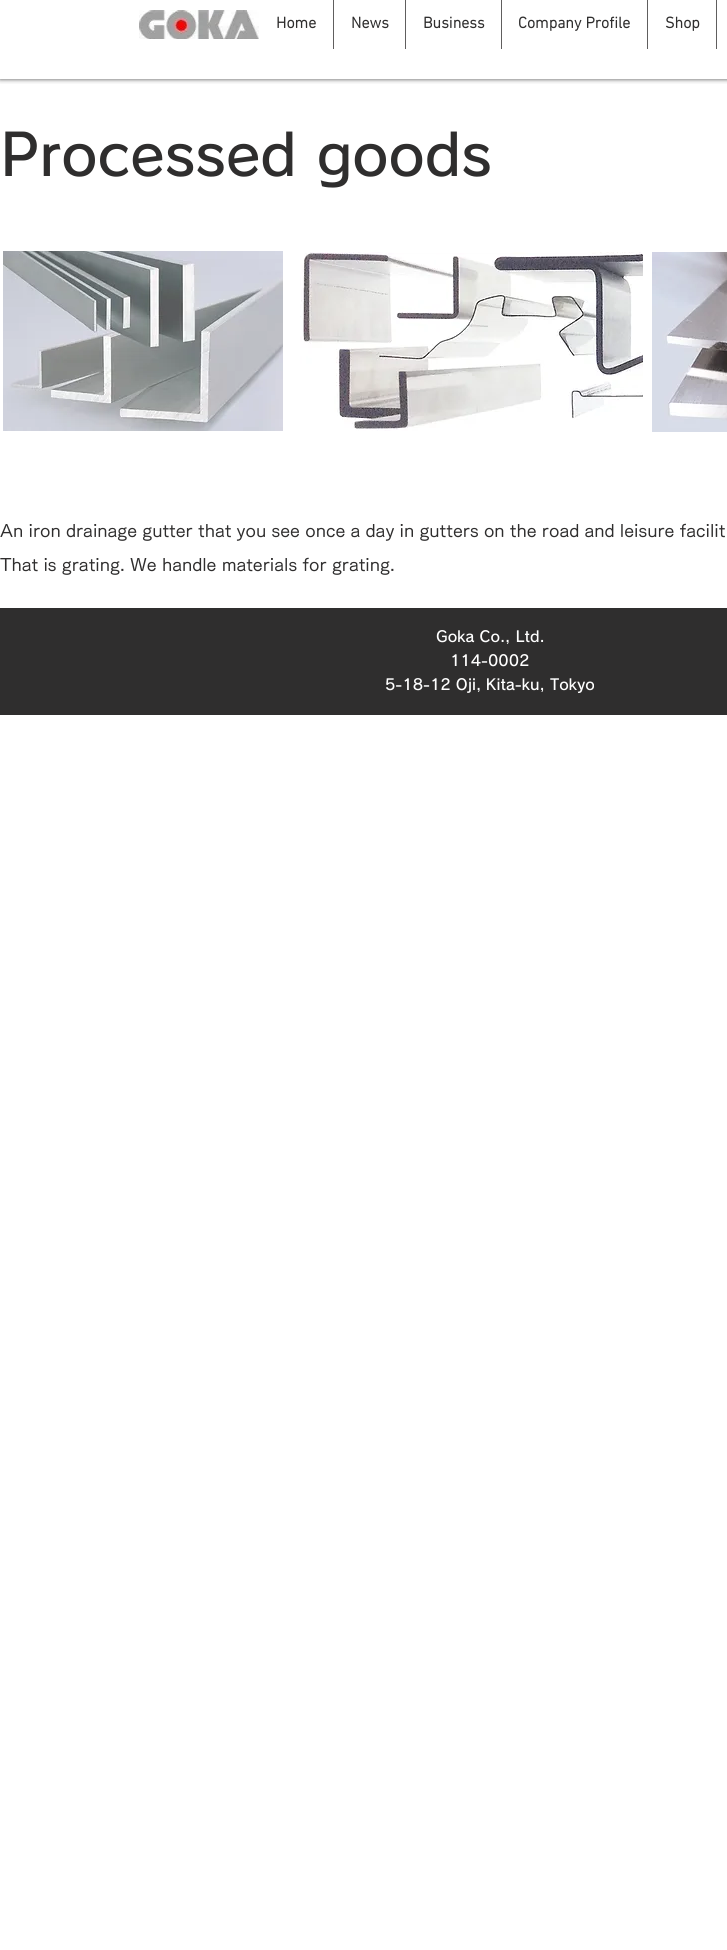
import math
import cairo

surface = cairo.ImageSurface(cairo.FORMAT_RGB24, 727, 1950)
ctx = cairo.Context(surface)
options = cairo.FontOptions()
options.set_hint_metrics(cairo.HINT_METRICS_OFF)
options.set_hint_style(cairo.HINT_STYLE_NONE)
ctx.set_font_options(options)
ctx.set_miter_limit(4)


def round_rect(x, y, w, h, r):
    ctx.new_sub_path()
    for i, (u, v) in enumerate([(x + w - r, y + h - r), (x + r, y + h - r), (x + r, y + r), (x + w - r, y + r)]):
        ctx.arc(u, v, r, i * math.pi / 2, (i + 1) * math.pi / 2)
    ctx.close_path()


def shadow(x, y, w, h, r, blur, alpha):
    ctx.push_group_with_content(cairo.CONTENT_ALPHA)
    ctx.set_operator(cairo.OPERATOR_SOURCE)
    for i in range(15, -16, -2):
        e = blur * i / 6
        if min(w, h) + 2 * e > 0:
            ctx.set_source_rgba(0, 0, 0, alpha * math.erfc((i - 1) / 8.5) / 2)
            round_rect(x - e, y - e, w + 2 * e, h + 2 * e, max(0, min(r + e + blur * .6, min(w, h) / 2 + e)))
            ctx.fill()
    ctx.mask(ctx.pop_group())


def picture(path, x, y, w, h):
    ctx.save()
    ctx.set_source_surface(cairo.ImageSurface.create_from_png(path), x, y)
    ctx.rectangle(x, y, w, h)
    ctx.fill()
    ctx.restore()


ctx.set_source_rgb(1, 1, 1)
ctx.paint()
ctx.save()
ctx.rectangle(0, 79, 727, 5)
ctx.clip()
ctx.set_source_rgb(0, 0, 0)
shadow(0, 0, 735, 79, 0, 2.5, 0.7)
ctx.restore()
picture("img1.png", 139, 10, 120, 29)
ctx.select_font_face("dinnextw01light", cairo.FONT_SLANT_NORMAL, cairo.FONT_WEIGHT_BOLD)
ctx.set_font_size(16)
ctx.set_source_rgb(0.184, 0.18, 0.18)
ctx.move_to(276, 28)
ctx.show_text("Home")
ctx.set_source_rgb(0.376, 0.369, 0.369)
ctx.rectangle(333, 0, 1, 49)
ctx.fill()
ctx.set_source_rgb(0.184, 0.18, 0.18)
ctx.move_to(351, 28)
ctx.show_text("News")
ctx.set_source_rgb(0.376, 0.369, 0.369)
ctx.rectangle(405, 0, 1, 49)
ctx.fill()
ctx.set_source_rgb(0.184, 0.18, 0.18)
ctx.move_to(423, 28)
ctx.show_text("Business")
ctx.set_source_rgb(0.376, 0.369, 0.369)
ctx.rectangle(501, 0, 1, 49)
ctx.fill()
ctx.set_source_rgb(0.184, 0.18, 0.18)
ctx.move_to(518, 28)
ctx.show_text("Company Profile")
ctx.set_source_rgb(0.376, 0.369, 0.369)
ctx.rectangle(647, 0, 1, 49)
ctx.fill()
ctx.set_source_rgb(0.184, 0.18, 0.18)
ctx.move_to(665, 28)
ctx.show_text("Shop")
ctx.set_source_rgb(0.376, 0.369, 0.369)
ctx.rectangle(716, 0, 1, 49)
ctx.fill()
ctx.select_font_face("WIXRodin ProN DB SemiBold")
ctx.set_font_size(57)
ctx.set_source_rgb(0.184, 0.18, 0.18)
ctx.move_to(0, 176)
ctx.show_text("Processed goods")
picture("img2.png", 3, 251, 280, 180)
picture("img3.png", 300, 252, 343, 179)
picture("img4.png", 652, 252, 75, 180)
ctx.select_font_face("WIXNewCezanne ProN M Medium")
ctx.set_font_size(17)
ctx.move_to(0, 537)
ctx.show_text("An iron drainage gutter that you see once a day in gutters on the road and leisure facilit")
ctx.move_to(0, 571)
ctx.show_text("That is grating. We handle materials for grating.")
ctx.rectangle(0, 608, 727, 107)
ctx.fill()
ctx.select_font_face("WIXRodin ProN DB SemiBold")
ctx.set_font_size(15)
ctx.set_source_rgb(1, 1, 1)
ctx.move_to(436, 642)
ctx.show_text("Goka Co., Ltd.")
ctx.move_to(450, 666)
ctx.show_text("114-0002")
ctx.move_to(385, 690)
ctx.show_text("5-18-12 Oji, Kita-ku, Tokyo")
surface.write_to_png("page.png")
